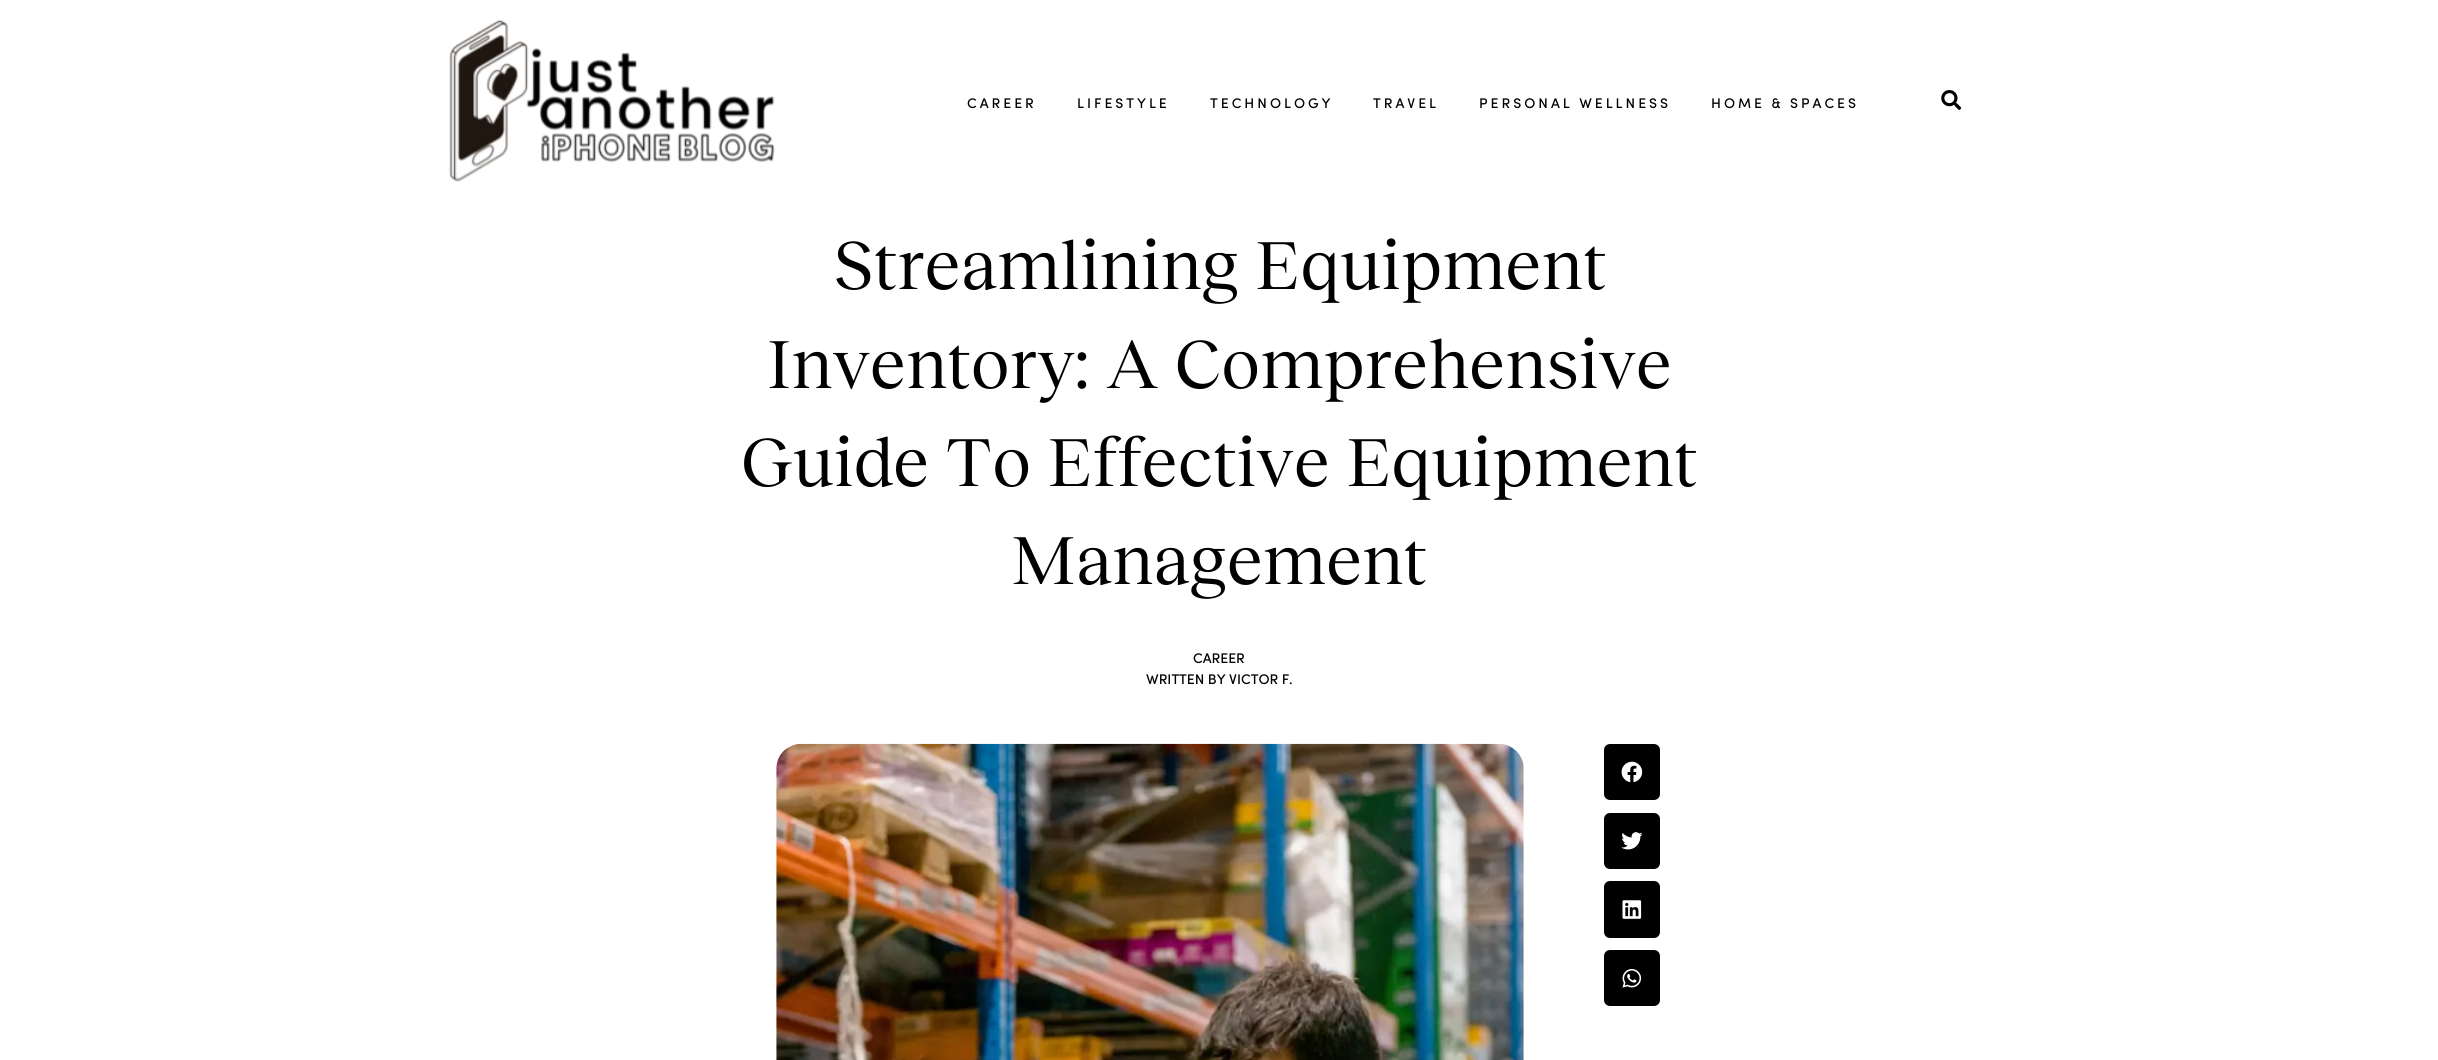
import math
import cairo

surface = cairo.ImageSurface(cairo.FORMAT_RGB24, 2438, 1060)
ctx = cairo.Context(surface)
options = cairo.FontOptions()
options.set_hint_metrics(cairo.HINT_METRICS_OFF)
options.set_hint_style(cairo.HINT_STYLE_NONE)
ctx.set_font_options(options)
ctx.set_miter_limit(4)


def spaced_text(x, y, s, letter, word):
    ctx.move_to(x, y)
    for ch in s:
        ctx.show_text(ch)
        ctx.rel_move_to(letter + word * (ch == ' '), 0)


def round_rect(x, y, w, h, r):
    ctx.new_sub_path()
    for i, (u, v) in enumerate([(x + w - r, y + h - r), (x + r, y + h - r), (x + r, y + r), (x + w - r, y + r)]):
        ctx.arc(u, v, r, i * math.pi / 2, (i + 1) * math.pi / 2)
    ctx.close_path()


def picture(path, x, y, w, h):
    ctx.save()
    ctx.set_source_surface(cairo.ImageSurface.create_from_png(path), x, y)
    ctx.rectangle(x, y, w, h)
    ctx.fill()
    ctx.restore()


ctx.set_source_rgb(1, 1, 1)
ctx.paint()
picture("img1.png", 449, 19, 326, 163)
ctx.select_font_face("Sofia Medium")
ctx.set_font_size(14)
ctx.set_source_rgb(0, 0, 0)
spaced_text(967, 108, "CAREER", 3, 0)
spaced_text(1077, 108, "LIFESTYLE", 3, 0)
spaced_text(1210, 108, "TECHNOLOGY", 3, 0)
spaced_text(1373, 108, "TRAVEL", 3, 0)
spaced_text(1479, 108, "PERSONAL WELLNESS", 3, 0)
spaced_text(1711, 108, "HOME & SPACES", 3, 0)
picture("img2.png", 1941, 90, 21, 20)
ctx.select_font_face("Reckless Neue")
ctx.set_font_size(70)
ctx.move_to(833, 289)
ctx.show_text("Streamlining Equipment")
ctx.move_to(767, 388)
ctx.show_text("Inventory: A Comprehensive")
ctx.move_to(741, 486)
ctx.show_text("Guide To Effective Equipment")
ctx.move_to(1011, 584)
ctx.show_text("Management")
ctx.select_font_face("Sofia Medium")
ctx.set_font_size(14)
ctx.move_to(1193, 663)
ctx.show_text("CAREER")
ctx.move_to(1146, 684)
ctx.show_text("WRITTEN BY VICTOR F.")
picture("img3.png", 776, 743, 748, 317)
round_rect(1604, 744, 56, 56, 6)
ctx.fill()
picture("img4.png", 1621, 761, 22, 22)
round_rect(1604, 813, 56, 56, 6)
ctx.fill()
picture("img5.png", 1621, 832, 22, 18)
round_rect(1604, 881, 56, 57, 6)
ctx.fill()
picture("img6.png", 1622, 900, 20, 19)
round_rect(1604, 950, 56, 56, 6)
ctx.fill()
picture("img7.png", 1622, 969, 20, 19)
surface.write_to_png("page.png")
